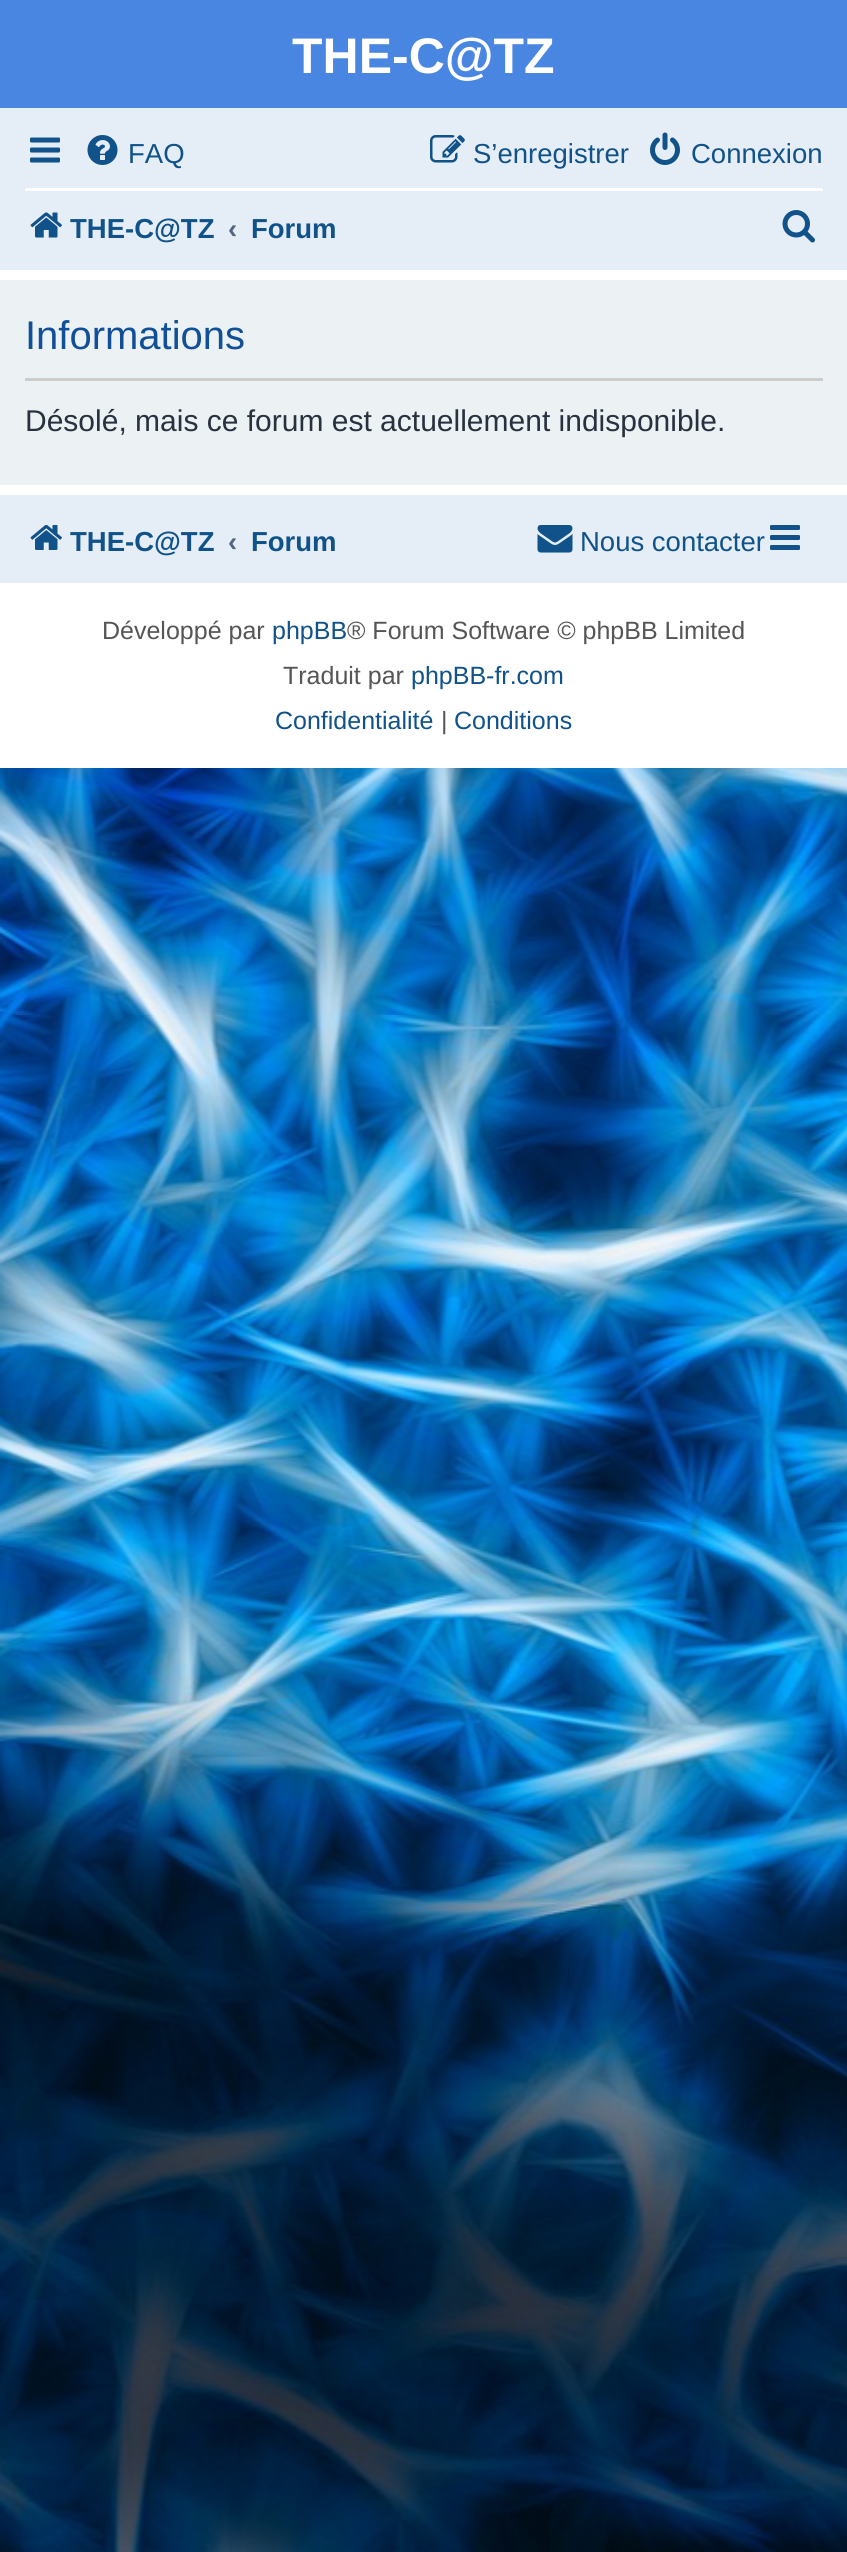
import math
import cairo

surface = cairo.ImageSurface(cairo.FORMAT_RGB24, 847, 2552)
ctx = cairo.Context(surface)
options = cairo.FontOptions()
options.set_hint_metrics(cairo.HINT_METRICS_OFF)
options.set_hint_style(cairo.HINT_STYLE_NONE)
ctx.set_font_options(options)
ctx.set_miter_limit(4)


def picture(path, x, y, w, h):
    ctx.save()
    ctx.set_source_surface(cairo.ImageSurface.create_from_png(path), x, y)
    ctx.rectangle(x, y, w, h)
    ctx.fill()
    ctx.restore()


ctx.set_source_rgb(1, 1, 1)
ctx.paint()
picture("img1.png", 0, 768, 847, 1784)
ctx.set_source_rgb(0.286, 0.525, 0.886)
ctx.rectangle(0, 0, 847, 108)
ctx.fill()
ctx.select_font_face("Liberation Sans", cairo.FONT_SLANT_NORMAL, cairo.FONT_WEIGHT_BOLD)
ctx.set_font_size(50)
ctx.set_source_rgb(1, 1, 1)
ctx.move_to(292, 73)
ctx.show_text("THE-C@TZ")
ctx.set_source_rgb(0.898, 0.933, 0.965)
ctx.rectangle(0, 108, 847, 162)
ctx.fill()
picture("img2.png", 30, 137, 30, 26)
picture("img3.png", 87, 135, 31, 30)
ctx.select_font_face("Liberation Sans")
ctx.set_font_size(27.5)
ctx.set_source_rgb(0.063, 0.322, 0.537)
ctx.move_to(128, 163)
ctx.show_text("FAQ")
picture("img4.png", 430, 135, 35, 28)
ctx.move_to(473, 163)
ctx.show_text("S’enregistrer")
picture("img5.png", 650, 132, 30, 33)
ctx.move_to(691, 163)
ctx.show_text("Connexion")
ctx.set_source_rgb(1, 1, 1)
ctx.rectangle(25, 188, 798, 3)
ctx.fill()
picture("img6.png", 30, 212, 32, 26)
ctx.select_font_face("Liberation Sans", cairo.FONT_SLANT_NORMAL, cairo.FONT_WEIGHT_BOLD)
ctx.set_source_rgb(0.063, 0.322, 0.537)
ctx.move_to(70, 238)
ctx.show_text("THE-C@TZ")
ctx.set_source_rgb(0.325, 0.392, 0.51)
ctx.move_to(228, 238)
ctx.show_text("‹")
ctx.set_source_rgb(0.063, 0.322, 0.537)
ctx.move_to(251, 238)
ctx.show_text("Forum")
picture("img7.png", 782, 210, 33, 33)
ctx.set_source_rgb(0.925, 0.945, 0.953)
ctx.rectangle(0, 280, 847, 205)
ctx.fill()
ctx.set_source_rgb(0.8, 0.8, 0.8)
ctx.rectangle(25, 378, 798, 3)
ctx.fill()
ctx.select_font_face("Liberation Sans")
ctx.set_font_size(40)
ctx.set_source_rgb(0.067, 0.314, 0.596)
ctx.move_to(25, 349)
ctx.show_text("Informations")
ctx.set_font_size(30)
ctx.set_source_rgb(0.157, 0.192, 0.247)
ctx.move_to(25, 431)
ctx.show_text("Désolé, mais ce forum est actuellement indisponible.")
ctx.set_source_rgb(0.898, 0.933, 0.965)
ctx.rectangle(0, 495, 847, 88)
ctx.fill()
picture("img8.png", 30, 524, 32, 26)
ctx.select_font_face("Liberation Sans", cairo.FONT_SLANT_NORMAL, cairo.FONT_WEIGHT_BOLD)
ctx.set_font_size(27.5)
ctx.set_source_rgb(0.063, 0.322, 0.537)
ctx.move_to(70, 551)
ctx.show_text("THE-C@TZ")
ctx.set_source_rgb(0.325, 0.392, 0.51)
ctx.move_to(228, 551)
ctx.show_text("‹")
ctx.set_source_rgb(0.063, 0.322, 0.537)
ctx.move_to(251, 551)
ctx.show_text("Forum")
picture("img9.png", 537, 525, 36, 28)
ctx.select_font_face("Liberation Sans")
ctx.move_to(580, 551)
ctx.show_text("Nous contacter")
picture("img10.png", 770, 525, 30, 25)
ctx.set_font_size(25)
ctx.set_source_rgb(0.333, 0.333, 0.333)
ctx.move_to(102, 639)
ctx.show_text("Développé par")
ctx.set_source_rgb(0.063, 0.322, 0.537)
ctx.move_to(272, 639)
ctx.show_text("phpBB")
ctx.set_source_rgb(0.333, 0.333, 0.333)
ctx.move_to(347, 639)
ctx.show_text("® Forum Software © phpBB Limited")
ctx.move_to(283, 684)
ctx.show_text("Traduit par")
ctx.set_source_rgb(0.063, 0.322, 0.537)
ctx.move_to(411, 684)
ctx.show_text("phpBB-fr.com")
ctx.move_to(275, 729)
ctx.show_text("Confidentialité")
ctx.set_source_rgb(0.333, 0.333, 0.333)
ctx.move_to(441, 729)
ctx.show_text("|")
ctx.set_source_rgb(0.063, 0.322, 0.537)
ctx.move_to(454, 729)
ctx.show_text("Conditions")
surface.write_to_png("page.png")
